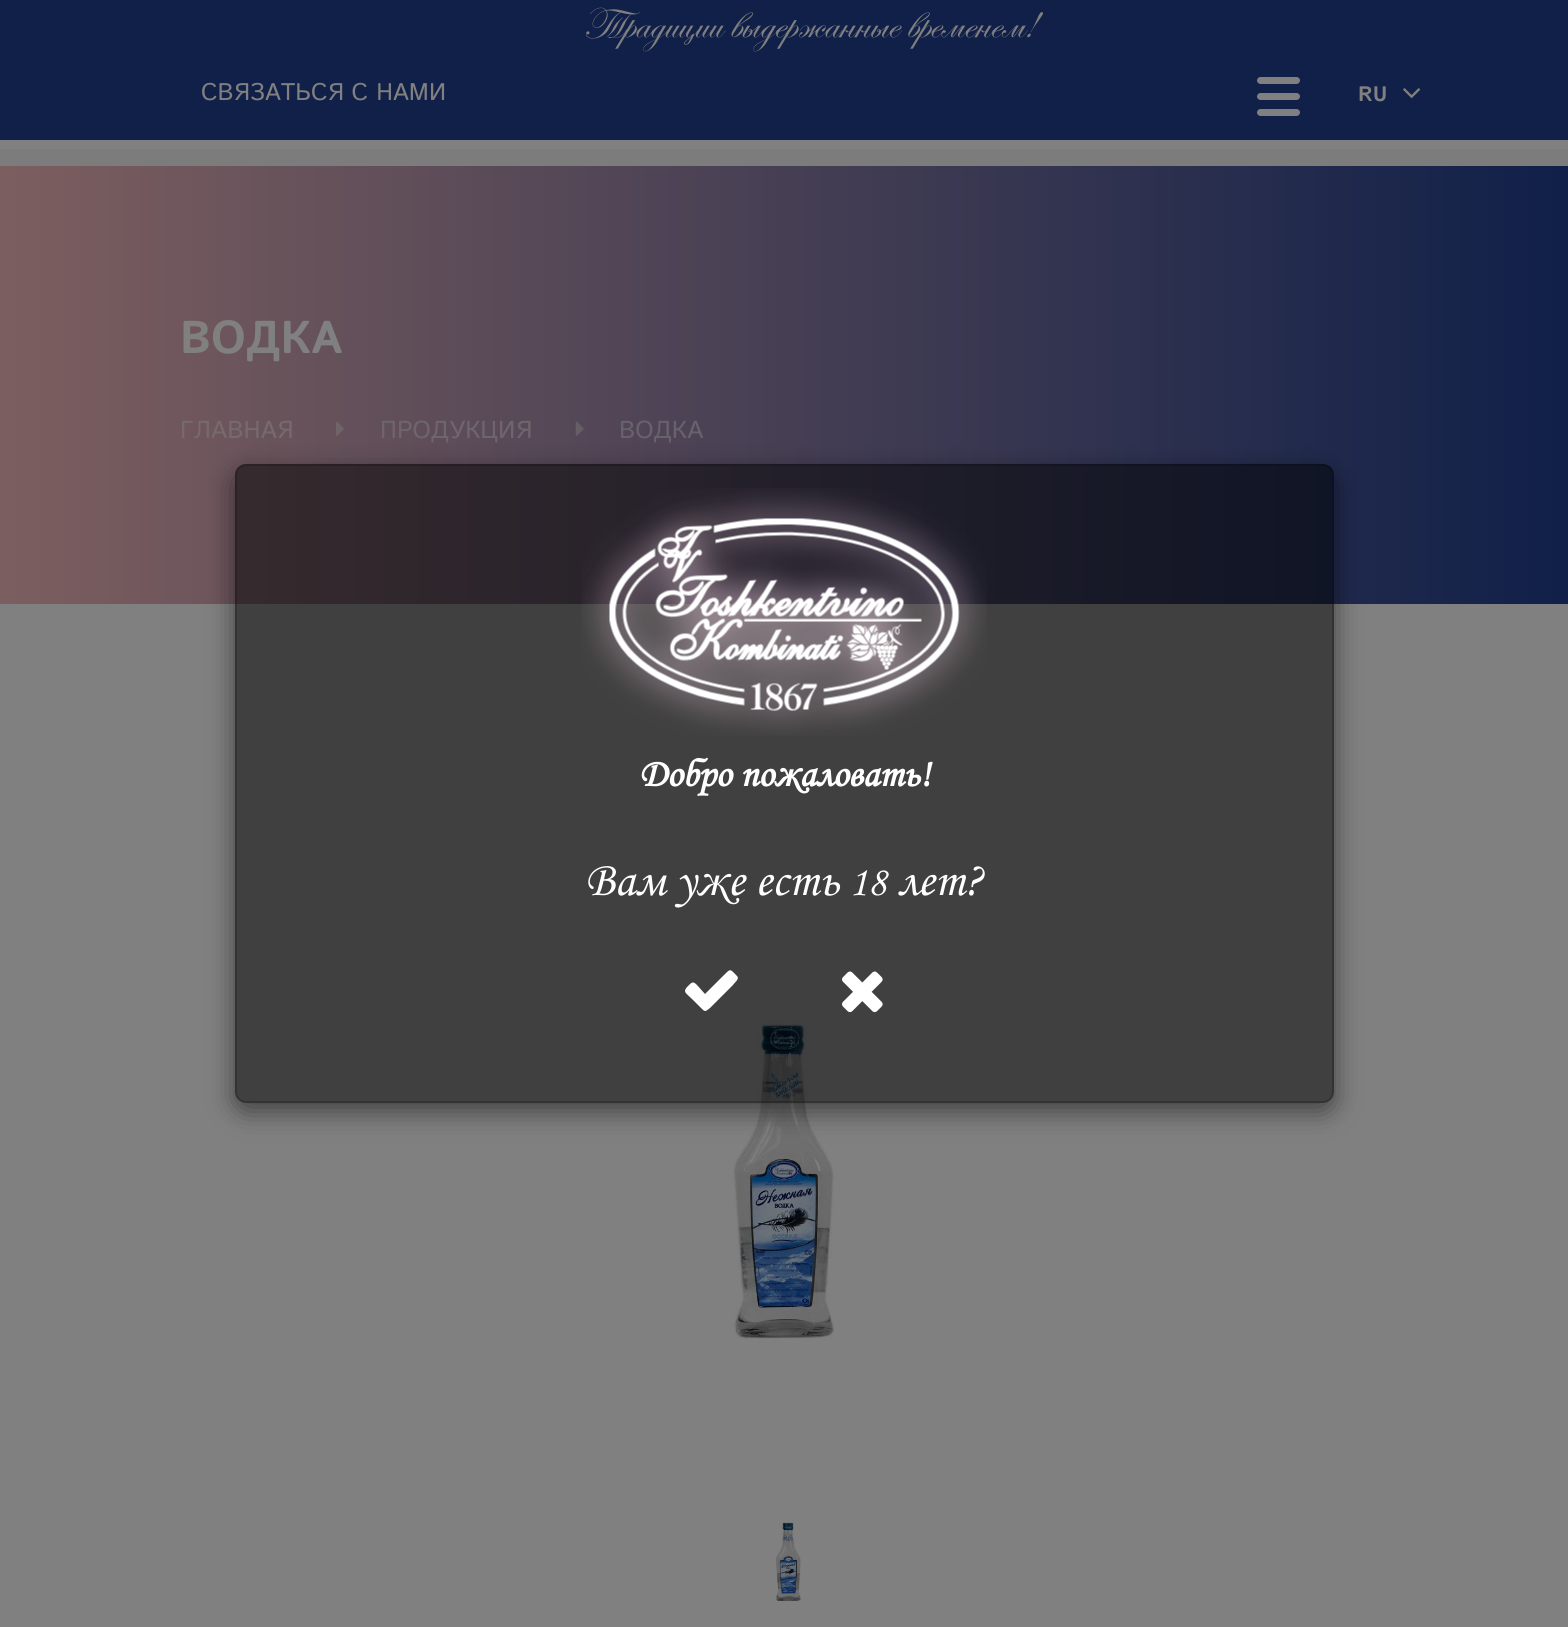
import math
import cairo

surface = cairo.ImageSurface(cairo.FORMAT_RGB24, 1568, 1627)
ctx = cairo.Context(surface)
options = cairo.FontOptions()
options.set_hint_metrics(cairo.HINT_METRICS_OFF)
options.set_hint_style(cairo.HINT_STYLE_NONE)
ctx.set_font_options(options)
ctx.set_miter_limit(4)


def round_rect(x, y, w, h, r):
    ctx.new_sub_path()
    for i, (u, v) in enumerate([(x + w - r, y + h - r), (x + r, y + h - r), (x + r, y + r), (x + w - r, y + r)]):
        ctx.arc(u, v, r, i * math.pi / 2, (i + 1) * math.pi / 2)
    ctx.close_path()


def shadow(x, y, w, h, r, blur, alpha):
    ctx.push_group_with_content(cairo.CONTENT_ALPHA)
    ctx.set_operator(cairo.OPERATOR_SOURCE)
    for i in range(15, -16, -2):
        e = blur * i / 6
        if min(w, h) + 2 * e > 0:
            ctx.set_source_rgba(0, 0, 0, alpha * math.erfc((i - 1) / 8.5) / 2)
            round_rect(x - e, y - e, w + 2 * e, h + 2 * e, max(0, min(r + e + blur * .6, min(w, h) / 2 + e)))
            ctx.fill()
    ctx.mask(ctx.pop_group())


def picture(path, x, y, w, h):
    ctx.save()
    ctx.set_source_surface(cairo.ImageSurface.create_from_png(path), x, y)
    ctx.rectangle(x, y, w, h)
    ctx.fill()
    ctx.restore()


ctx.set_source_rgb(0.486, 0.486, 0.486)
ctx.paint()
ctx.set_source_rgb(0.063, 0.125, 0.286)
ctx.rectangle(0, 0, 1568, 140)
ctx.fill()
ctx.select_font_face("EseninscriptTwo")
ctx.set_font_size(43.75)
ctx.set_source_rgb(0.502, 0.502, 0.502)
ctx.move_to(584, 37)
ctx.show_text("Традиции выдержанные временем!")
ctx.select_font_face("Istok Web")
ctx.set_font_size(24.1)
ctx.move_to(201, 100)
ctx.show_text("СВЯЗАТЬСЯ С НАМИ")
round_rect(1257, 77, 43, 7, 3.5)
ctx.fill()
round_rect(1257, 93, 43, 7, 3.5)
ctx.fill()
round_rect(1257, 109, 43, 7, 3.5)
ctx.fill()
ctx.select_font_face("Istok Web", cairo.FONT_SLANT_NORMAL, cairo.FONT_WEIGHT_BOLD)
ctx.set_font_size(21)
ctx.move_to(1358, 101)
ctx.show_text("RU")
picture("img1.png", 1403, 88, 18, 11)
ctx.rectangle(0, 140, 1568, 9)
ctx.fill()
ctx.rectangle(0, 604, 1568, 1023)
ctx.fill()
gradient = cairo.LinearGradient(1568, 385, 0, 385)
gradient.add_color_stop_rgba(0, 0.063, 0.125, 0.286, 1)
gradient.add_color_stop_rgba(1, 0.486, 0.369, 0.373, 1)
ctx.set_source(gradient)
ctx.rectangle(0, 166, 1568, 438)
ctx.fill()
ctx.set_font_size(46)
ctx.set_source_rgb(0.502, 0.502, 0.502)
ctx.move_to(180, 353)
ctx.show_text("ВОДКА")
ctx.select_font_face("Istok Web")
ctx.set_font_size(24.5)
ctx.set_source_rgb(0.463, 0.416, 0.431)
ctx.move_to(180, 438)
ctx.show_text("ГЛАВНАЯ")
picture("img2.png", 336, 422, 8, 14)
ctx.set_source_rgb(0.431, 0.4, 0.424)
ctx.move_to(380, 438)
ctx.show_text("ПРОДУКЦИЯ")
picture("img3.png", 575, 421, 9, 15)
ctx.set_source_rgb(0.404, 0.384, 0.42)
ctx.move_to(619, 438)
ctx.show_text("ВОДКА")
picture("img4.png", 733, 1020, 101, 319)
picture("img5.png", 776, 1522, 25, 79)
ctx.save()
ctx.set_fill_rule(cairo.FILL_RULE_EVEN_ODD)
ctx.new_path()
ctx.move_to(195, 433)
ctx.line_to(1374, 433)
ctx.line_to(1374, 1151)
ctx.line_to(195, 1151)
ctx.close_path()
ctx.move_to(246, 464)
ctx.line_to(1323, 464)
ctx.curve_to(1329, 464, 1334, 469, 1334, 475)
ctx.line_to(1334, 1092)
ctx.curve_to(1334, 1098, 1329, 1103, 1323, 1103)
ctx.line_to(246, 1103)
ctx.curve_to(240, 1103, 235, 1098, 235, 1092)
ctx.line_to(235, 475)
ctx.curve_to(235, 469, 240, 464, 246, 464)
ctx.close_path()
ctx.clip()
ctx.set_source_rgb(0, 0, 0)
shadow(235, 473, 1099, 638, 11, 13, 0.5)
ctx.restore()
ctx.set_source_rgba(0, 0, 0, 0.5)
round_rect(235, 464, 1099, 639, 11)
ctx.fill()
round_rect(236, 465, 1097, 637, 10)
ctx.set_source_rgba(0, 0, 0, 0.2)
ctx.stroke()
picture("img6.png", 581, 488, 406, 248)
ctx.select_font_face("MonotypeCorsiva", cairo.FONT_SLANT_ITALIC, cairo.FONT_WEIGHT_BOLD)
ctx.set_font_size(39.25)
ctx.set_source_rgb(1, 1, 1)
ctx.move_to(639, 786)
ctx.show_text("Добро пожаловать!")
ctx.select_font_face("MonotypeCorsiva", cairo.FONT_SLANT_ITALIC)
ctx.set_font_size(49)
ctx.move_to(585, 895)
ctx.show_text("Вам уже есть")
ctx.set_font_size(42)
ctx.move_to(849, 895)
ctx.show_text("18")
ctx.set_font_size(49)
ctx.move_to(897, 895)
ctx.show_text("лет?")
ctx.new_path()
ctx.move_to(737, 976)
ctx.curve_to(740, 979, 734, 983, 733, 985)
ctx.line_to(710, 1008)
ctx.curve_to(705, 1012, 705, 1012, 701, 1008)
ctx.line_to(692, 999)
ctx.curve_to(686, 993, 682, 992, 688, 986)
ctx.curve_to(692, 982, 693, 981, 697, 985)
ctx.line_to(705, 994)
ctx.line_to(724, 975)
ctx.curve_to(731, 968, 730, 969, 737, 976)
ctx.close_path()
ctx.fill()
picture("img7.png", 842, 971, 41, 42)
surface.write_to_png("page.png")
